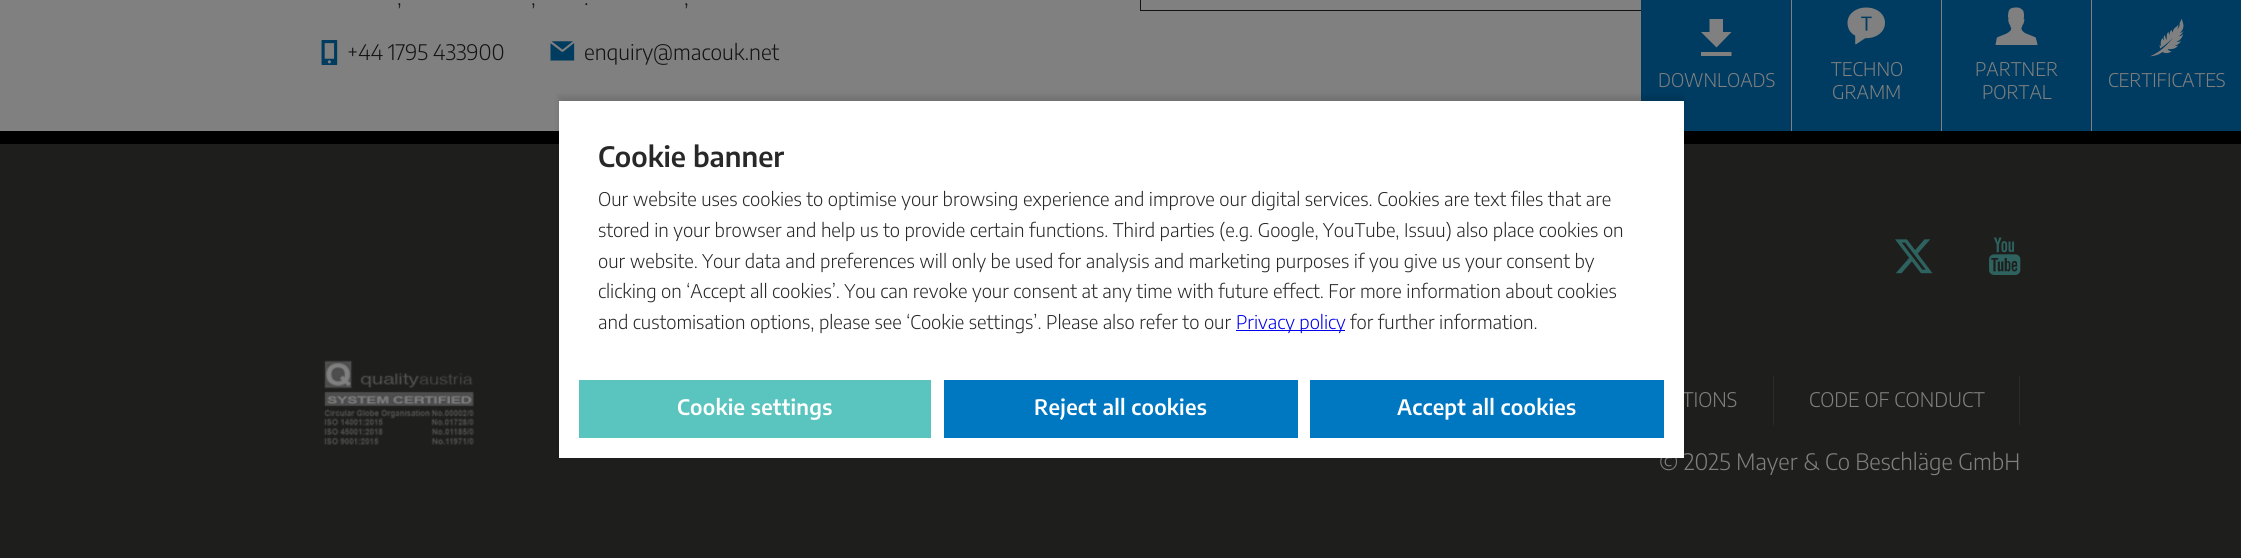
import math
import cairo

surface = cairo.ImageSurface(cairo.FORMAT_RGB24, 2241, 558)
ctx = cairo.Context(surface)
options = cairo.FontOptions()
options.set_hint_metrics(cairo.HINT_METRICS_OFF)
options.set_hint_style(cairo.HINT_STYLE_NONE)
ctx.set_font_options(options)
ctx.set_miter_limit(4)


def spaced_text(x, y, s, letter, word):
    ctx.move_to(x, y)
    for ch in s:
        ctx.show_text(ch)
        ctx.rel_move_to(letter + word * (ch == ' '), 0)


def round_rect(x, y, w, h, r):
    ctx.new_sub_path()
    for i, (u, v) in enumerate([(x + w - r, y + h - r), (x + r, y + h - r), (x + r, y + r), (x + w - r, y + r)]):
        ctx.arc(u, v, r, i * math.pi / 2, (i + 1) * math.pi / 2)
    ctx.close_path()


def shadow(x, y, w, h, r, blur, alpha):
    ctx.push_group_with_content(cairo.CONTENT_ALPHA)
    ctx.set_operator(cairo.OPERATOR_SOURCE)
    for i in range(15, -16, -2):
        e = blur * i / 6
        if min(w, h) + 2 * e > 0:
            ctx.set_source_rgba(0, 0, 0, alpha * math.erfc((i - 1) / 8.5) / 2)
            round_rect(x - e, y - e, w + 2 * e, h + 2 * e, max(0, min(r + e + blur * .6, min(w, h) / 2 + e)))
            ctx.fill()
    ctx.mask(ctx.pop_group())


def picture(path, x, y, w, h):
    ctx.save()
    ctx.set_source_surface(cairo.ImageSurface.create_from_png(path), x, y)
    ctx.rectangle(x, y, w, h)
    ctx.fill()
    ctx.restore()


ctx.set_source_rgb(0.502, 0.502, 0.502)
ctx.paint()
ctx.select_font_face("Encode Sans Light")
ctx.set_font_size(21.25)
ctx.set_source_rgb(0.078, 0.078, 0.078)
ctx.move_to(397, 5)
ctx.show_text(",")
ctx.move_to(531, 5)
ctx.show_text(",")
ctx.move_to(584, 5)
ctx.show_text(".")
ctx.move_to(684, 5)
ctx.show_text(",")
picture("img1.png", 321, 40, 17, 25)
ctx.move_to(347, 60)
ctx.show_text("+44 1795 433900")
picture("img2.png", 550, 41, 25, 20)
ctx.move_to(584, 60)
ctx.show_text("enquiry@macouk.net")
ctx.rectangle(1140, 10, 501, 1)
ctx.fill()
ctx.rectangle(1140, 0, 1, 11)
ctx.fill()
ctx.set_source_rgb(0, 0.235, 0.38)
ctx.rectangle(1641, 0, 150, 131)
ctx.fill()
ctx.set_source_rgb(0.502, 0.502, 0.502)
ctx.new_path()
ctx.move_to(1731.5, 32)
ctx.line_to(1723, 32)
ctx.line_to(1723, 19)
ctx.line_to(1709.5, 19)
ctx.line_to(1709.5, 32)
ctx.line_to(1701, 32)
ctx.line_to(1716.5, 47.5)
ctx.close_path()
ctx.move_to(1701, 52)
ctx.line_to(1701, 56)
ctx.line_to(1731.5, 56)
ctx.line_to(1731.5, 52)
ctx.close_path()
ctx.fill()
ctx.set_font_size(18.75)
ctx.move_to(1658, 87)
ctx.show_text("DOWNLOADS")
ctx.set_source_rgb(0, 0.235, 0.38)
ctx.rectangle(1792, 0, 149, 131)
ctx.fill()
picture("img3.png", 1847, 7, 38, 38)
ctx.set_source_rgb(0.502, 0.502, 0.502)
ctx.move_to(1831, 76)
ctx.show_text("TECHNO")
ctx.move_to(1832, 99)
ctx.show_text("GRAMM")
ctx.set_source_rgb(0, 0.235, 0.38)
ctx.rectangle(1942, 0, 149, 131)
ctx.fill()
picture("img4.png", 1995, 7, 43, 38)
ctx.set_source_rgb(0.502, 0.502, 0.502)
ctx.move_to(1975, 76)
ctx.show_text("PARTNER")
ctx.move_to(1982, 99)
ctx.show_text("PORTAL")
ctx.set_source_rgb(0, 0.235, 0.38)
ctx.rectangle(2092, 0, 149, 131)
ctx.fill()
picture("img5.png", 2150, 19, 34, 38)
ctx.set_source_rgb(0.502, 0.502, 0.502)
ctx.move_to(2108, 87)
ctx.show_text("CERTIFICATES")
ctx.set_source_rgb(0.118, 0.118, 0.114)
ctx.rectangle(0, 144, 2241, 414)
ctx.fill()
ctx.set_source_rgb(0, 0, 0)
ctx.rectangle(0, 131, 2241, 13)
ctx.fill()
ctx.set_source_rgb(0, 0, 0)
shadow(559, 96, 1125, 357, 0, 2.5, 0.11)
ctx.set_font_size(20)
ctx.set_source_rgb(0.502, 0.502, 0.502)
ctx.move_to(1682, 407)
ctx.show_text("TIONS")
ctx.set_font_size(22.5)
ctx.move_to(1659, 470)
ctx.show_text("© 2025 Mayer & Co Beschläge GmbH")
ctx.set_source_rgb(1, 1, 1)
ctx.rectangle(559, 101, 1125, 357)
ctx.fill()
ctx.select_font_face("Encode Sans SemiBold")
ctx.set_font_size(28)
ctx.set_source_rgb(0.157, 0.157, 0.157)
ctx.move_to(598, 167)
ctx.show_text("Cookie banner")
ctx.select_font_face("Encode Sans Light")
ctx.set_font_size(18.75)
ctx.move_to(598, 206)
ctx.show_text("Our website uses cookies to optimise your browsing experience and improve our digital services. Cookies are text files that are")
ctx.move_to(598, 237)
ctx.show_text("stored in your browser and help us to provide certain functions. Third parties (e.g. Google, YouTube, Issuu) also place cookies on")
ctx.move_to(598, 268)
ctx.show_text("our website. Your data and preferences will only be used for analysis and marketing purposes if you give us your consent by")
ctx.move_to(598, 298)
ctx.show_text("clicking on ‘Accept all cookies’. You can revoke your consent at any time with future effect. For more information about cookies")
ctx.move_to(598, 329)
ctx.show_text("and customisation options, please see ‘Cookie settings’. Please also refer to our")
ctx.set_source_rgb(0, 0, 0.933)
ctx.rectangle(1236, 330, 109, 1)
ctx.fill()
ctx.move_to(1236, 329)
ctx.show_text("Privacy policy")
ctx.set_source_rgb(0.157, 0.157, 0.157)
ctx.move_to(1350, 329)
ctx.show_text("for further information.")
ctx.set_source_rgb(0.353, 0.769, 0.745)
ctx.rectangle(579, 380, 352, 58)
ctx.fill()
ctx.select_font_face("Encode Sans SemiBold")
ctx.set_font_size(21.25)
ctx.set_source_rgb(1, 1, 1)
spaced_text(677, 415, "Cookie settings", 0.25, 0)
ctx.set_source_rgb(0, 0.467, 0.757)
ctx.rectangle(944, 380, 354, 58)
ctx.fill()
ctx.set_source_rgb(1, 1, 1)
spaced_text(1034, 415, "Reject all cookies", 0.25, 0)
ctx.set_source_rgb(0, 0.467, 0.757)
ctx.rectangle(1310, 380, 354, 58)
ctx.fill()
ctx.set_source_rgb(1, 1, 1)
spaced_text(1397, 415, "Accept all cookies", 0.25, 0)
picture("img6.png", 1895, 239, 38, 35)
picture("img7.png", 1989, 237, 32, 38)
picture("img8.png", 323, 360, 151, 85)
ctx.set_source_rgb(0.169, 0.169, 0.169)
ctx.rectangle(1773, 376, 1, 49)
ctx.fill()
ctx.rectangle(2019, 376, 1, 49)
ctx.fill()
ctx.select_font_face("Encode Sans Light")
ctx.set_font_size(20)
ctx.set_source_rgb(0.502, 0.502, 0.502)
ctx.move_to(1809, 407)
ctx.show_text("CODE OF CONDUCT")
surface.write_to_png("page.png")
